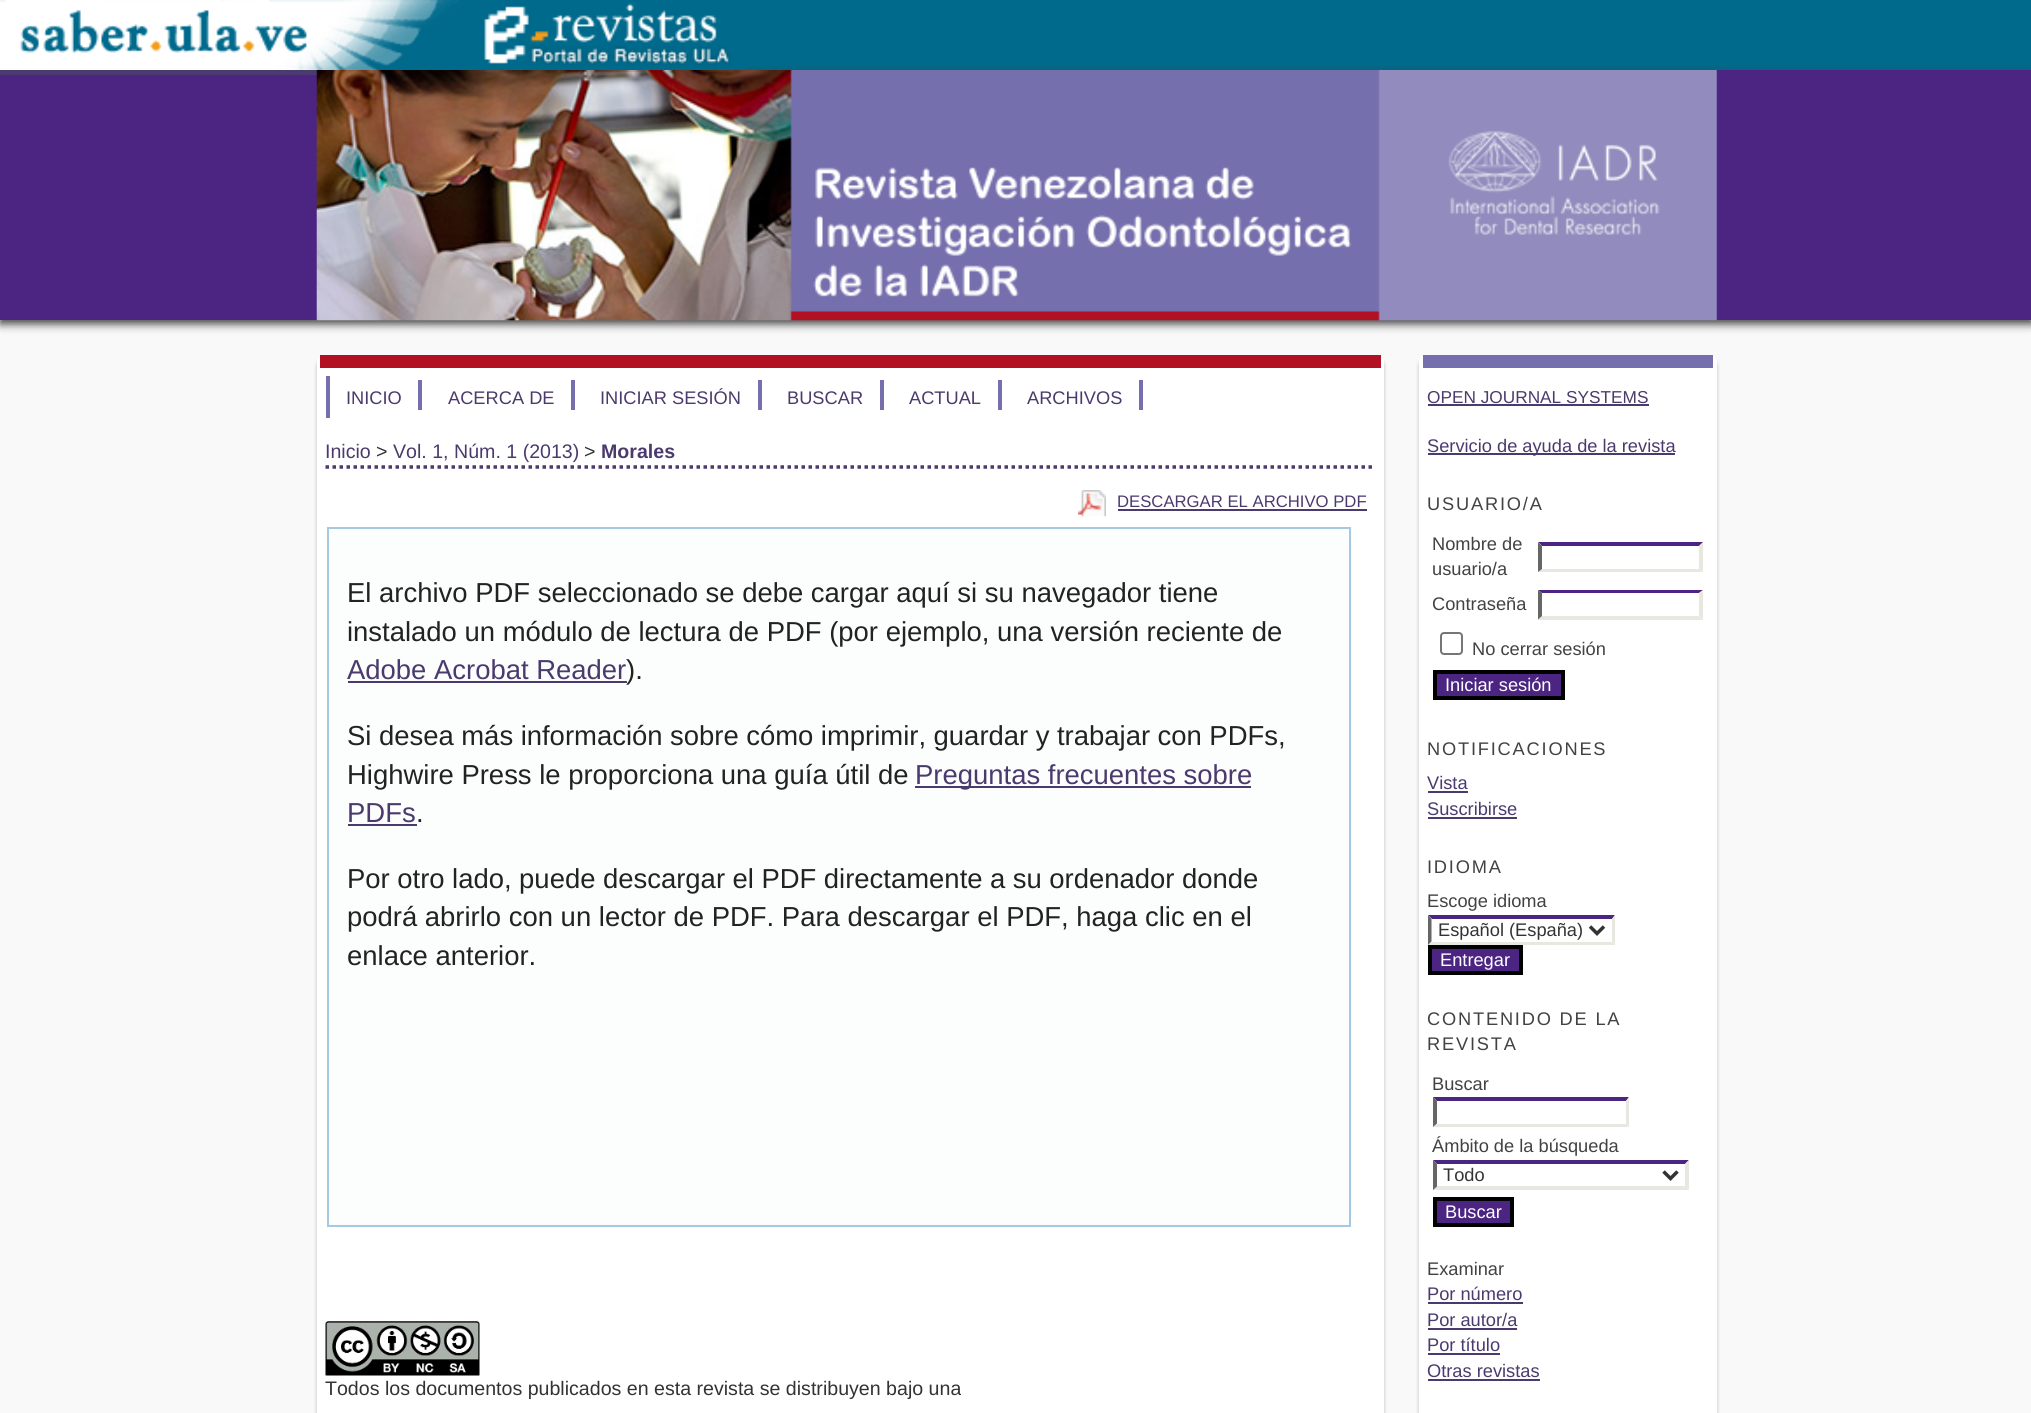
import math
import cairo

surface = cairo.ImageSurface(cairo.FORMAT_RGB24, 2031, 1413)
ctx = cairo.Context(surface)
options = cairo.FontOptions()
options.set_hint_metrics(cairo.HINT_METRICS_OFF)
options.set_hint_style(cairo.HINT_STYLE_NONE)
ctx.set_font_options(options)
ctx.set_miter_limit(4)


def spaced_text(x, y, s, letter, word):
    ctx.move_to(x, y)
    for ch in s:
        ctx.show_text(ch)
        ctx.rel_move_to(letter + word * (ch == ' '), 0)


def round_rect(x, y, w, h, r):
    ctx.new_sub_path()
    for i, (u, v) in enumerate([(x + w - r, y + h - r), (x + r, y + h - r), (x + r, y + r), (x + w - r, y + r)]):
        ctx.arc(u, v, r, i * math.pi / 2, (i + 1) * math.pi / 2)
    ctx.close_path()


def shadow(x, y, w, h, r, blur, alpha):
    ctx.push_group_with_content(cairo.CONTENT_ALPHA)
    ctx.set_operator(cairo.OPERATOR_SOURCE)
    for i in range(15, -16, -2):
        e = blur * i / 6
        if min(w, h) + 2 * e > 0:
            ctx.set_source_rgba(0, 0, 0, alpha * math.erfc((i - 1) / 8.5) / 2)
            round_rect(x - e, y - e, w + 2 * e, h + 2 * e, max(0, min(r + e + blur * .6, min(w, h) / 2 + e)))
            ctx.fill()
    ctx.mask(ctx.pop_group())


def picture(path, x, y, w, h):
    ctx.save()
    ctx.set_source_surface(cairo.ImageSurface.create_from_png(path), x, y)
    ctx.rectangle(x, y, w, h)
    ctx.fill()
    ctx.restore()


ctx.set_source_rgb(0.976, 0.976, 0.976)
ctx.paint()
ctx.set_source_rgb(0, 0.416, 0.549)
ctx.rectangle(460, 0, 1571, 70)
ctx.fill()
ctx.set_source_rgb(0.259, 0.259, 0.259)
shadow(0, 74, 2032, 250, 0, 4.5, 1)
picture("img1.png", 0, 0, 460, 70)
picture("img2.png", 460, 3, 286, 67)
ctx.set_source_rgb(0.298, 0.145, 0.51)
ctx.rectangle(0, 70, 2031, 250)
ctx.fill()
ctx.set_source_rgb(0.294, 0.227, 0.431)
ctx.rectangle(0, 70, 317, 5)
ctx.fill()
picture("img3.png", 316, 70, 1401, 251)
ctx.set_source_rgb(0, 0, 0)
shadow(317, 359, 1067, 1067, 7, 2, 0.24)
ctx.set_source_rgb(1, 1, 1)
round_rect(317, 355, 1067, 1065, 7)
ctx.fill()
ctx.set_source_rgb(0.698, 0.067, 0.141)
ctx.rectangle(320, 355, 1061, 13)
ctx.fill()
ctx.set_source_rgb(0.459, 0.435, 0.678)
ctx.rectangle(326, 376, 4, 42)
ctx.fill()
ctx.select_font_face("Liberation Sans")
ctx.set_font_size(18.25)
ctx.set_source_rgb(0.294, 0.227, 0.431)
ctx.move_to(346, 404)
ctx.show_text("INICIO")
ctx.set_source_rgb(0.459, 0.435, 0.678)
ctx.rectangle(418, 380, 4, 30)
ctx.fill()
ctx.set_source_rgb(0.294, 0.227, 0.431)
ctx.move_to(448, 404)
ctx.show_text("ACERCA DE")
ctx.set_source_rgb(0.459, 0.435, 0.678)
ctx.rectangle(571, 380, 4, 30)
ctx.fill()
ctx.set_source_rgb(0.294, 0.227, 0.431)
ctx.move_to(600, 404)
ctx.show_text("INICIAR SESIÓN")
ctx.set_source_rgb(0.459, 0.435, 0.678)
ctx.rectangle(758, 380, 4, 30)
ctx.fill()
ctx.set_source_rgb(0.294, 0.227, 0.431)
ctx.move_to(787, 404)
ctx.show_text("BUSCAR")
ctx.set_source_rgb(0.459, 0.435, 0.678)
ctx.rectangle(880, 380, 4, 30)
ctx.fill()
ctx.set_source_rgb(0.294, 0.227, 0.431)
ctx.move_to(909, 404)
ctx.show_text("ACTUAL")
ctx.set_source_rgb(0.459, 0.435, 0.678)
ctx.rectangle(998, 380, 4, 30)
ctx.fill()
ctx.set_source_rgb(0.294, 0.227, 0.431)
ctx.move_to(1027, 404)
ctx.show_text("ARCHIVOS")
ctx.set_source_rgb(0.459, 0.435, 0.678)
ctx.rectangle(1139, 380, 4, 30)
ctx.fill()
ctx.set_font_size(19.6)
ctx.set_source_rgb(0.294, 0.227, 0.431)
ctx.move_to(325, 458)
ctx.show_text("Inicio")
ctx.set_source_rgb(0.2, 0.2, 0.2)
ctx.move_to(376, 458)
ctx.show_text(">")
ctx.set_source_rgb(0.294, 0.227, 0.431)
ctx.move_to(393, 458)
ctx.show_text("Vol. 1, Núm. 1 (2013)")
ctx.set_source_rgb(0.2, 0.2, 0.2)
ctx.move_to(584, 458)
ctx.show_text(">")
ctx.select_font_face("Liberation Sans", cairo.FONT_SLANT_NORMAL, cairo.FONT_WEIGHT_BOLD)
ctx.set_source_rgb(0.294, 0.227, 0.431)
ctx.move_to(601, 458)
ctx.show_text("Morales")
ctx.new_path()
ctx.move_to(325.5, 467)
ctx.line_to(1375.5, 467)
ctx.set_line_width(3.5)
ctx.set_dash([3.5, 3.5])
ctx.stroke()
picture("img4.png", 1078, 490, 28, 27)
ctx.select_font_face("Liberation Sans")
ctx.set_font_size(16.7)
ctx.move_to(1117, 507)
ctx.show_text("DESCARGAR EL ARCHIVO PDF")
ctx.rectangle(1118, 509, 249, 2)
ctx.fill()
ctx.set_source_rgb(0.988, 0.992, 0.992)
ctx.rectangle(328, 528, 1022, 698)
ctx.fill_preserve()
ctx.set_source_rgb(0.651, 0.788, 0.886)
ctx.set_line_width(2)
ctx.set_dash([])
ctx.stroke()
ctx.set_font_size(27.45)
ctx.set_source_rgb(0.133, 0.133, 0.133)
ctx.move_to(347, 602)
ctx.show_text("El archivo PDF seleccionado se debe cargar aquí si su navegador tiene")
ctx.move_to(347, 641)
ctx.show_text("instalado un módulo de lectura de PDF (por ejemplo, una versión reciente de")
ctx.set_source_rgb(0.294, 0.227, 0.431)
ctx.move_to(347, 679)
ctx.show_text("Adobe Acrobat Reader")
ctx.rectangle(348, 681, 279, 2)
ctx.fill()
ctx.set_source_rgb(0.133, 0.133, 0.133)
ctx.move_to(626, 679)
ctx.show_text(").")
spaced_text(347, 745, "Si desea más información sobre cómo imprimir, guardar y trabajar con PDFs,", 0, -0.1)
ctx.move_to(347, 784)
ctx.show_text("Highwire Press le proporciona una guía útil de")
ctx.set_source_rgb(0.294, 0.227, 0.431)
ctx.rectangle(915, 786, 336, 2)
ctx.fill()
ctx.move_to(915, 784)
ctx.show_text("Preguntas frecuentes sobre")
ctx.move_to(347, 822)
ctx.show_text("PDFs")
ctx.rectangle(348, 824, 69, 2)
ctx.fill()
ctx.set_source_rgb(0.133, 0.133, 0.133)
ctx.move_to(416, 822)
ctx.show_text(".")
spaced_text(347, 888, "Por otro lado, puede descargar el PDF directamente a su ordenador donde", 0, -0.1)
ctx.move_to(347, 926)
ctx.show_text("podrá abrirlo con un lector de PDF. Para descargar el PDF, haga clic en el")
ctx.move_to(347, 965)
ctx.show_text("enlace anterior.")
picture("img5.png", 325, 1321, 155, 55)
ctx.set_font_size(19.6)
ctx.set_source_rgb(0.2, 0.2, 0.2)
ctx.move_to(325, 1395)
ctx.show_text("Todos los documentos publicados en esta revista se distribuyen bajo una")
ctx.set_source_rgb(0, 0, 0)
shadow(1419, 359, 298, 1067, 7, 2, 0.24)
ctx.set_source_rgb(1, 1, 1)
round_rect(1419, 355, 298, 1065, 7)
ctx.fill()
ctx.set_source_rgb(0.459, 0.435, 0.678)
ctx.rectangle(1423, 355, 290, 13)
ctx.fill()
ctx.set_font_size(17.25)
ctx.set_source_rgb(0.294, 0.227, 0.431)
ctx.move_to(1427, 403)
ctx.show_text("OPEN JOURNAL SYSTEMS")
ctx.rectangle(1428, 404, 221, 2)
ctx.fill()
ctx.rectangle(1428, 453, 247, 2)
ctx.fill()
ctx.set_font_size(18.25)
ctx.move_to(1427, 452)
ctx.show_text("Servicio de ayuda de la revista")
ctx.set_source_rgb(0.259, 0.259, 0.259)
spaced_text(1427, 510, "USUARIO/A", 1.8, 0)
ctx.move_to(1432, 550)
ctx.show_text("Nombre de")
ctx.move_to(1432, 575)
ctx.show_text("usuario/a")
ctx.set_source_rgb(0.298, 0.145, 0.51)
ctx.new_path()
ctx.move_to(1538, 542)
ctx.line_to(1703, 542)
ctx.line_to(1699, 546)
ctx.line_to(1542, 546)
ctx.close_path()
ctx.fill()
ctx.set_source_rgb(0.91, 0.91, 0.882)
ctx.new_path()
ctx.move_to(1703, 542.5)
ctx.line_to(1703, 572)
ctx.line_to(1699, 569)
ctx.line_to(1699, 546)
ctx.close_path()
ctx.fill()
ctx.new_path()
ctx.move_to(1703, 572)
ctx.line_to(1538, 572)
ctx.line_to(1542, 569)
ctx.line_to(1699, 569)
ctx.close_path()
ctx.fill()
ctx.set_source_rgb(0.4, 0.4, 0.4)
ctx.new_path()
ctx.move_to(1538, 572)
ctx.line_to(1538, 542.5)
ctx.line_to(1542, 546)
ctx.line_to(1542, 569)
ctx.close_path()
ctx.fill()
ctx.set_source_rgb(0.259, 0.259, 0.259)
ctx.move_to(1432, 610)
ctx.show_text("Contraseña")
ctx.set_source_rgb(0.298, 0.145, 0.51)
ctx.new_path()
ctx.move_to(1538, 590)
ctx.line_to(1703, 590)
ctx.line_to(1699, 593)
ctx.line_to(1542, 593)
ctx.close_path()
ctx.fill()
ctx.set_source_rgb(0.91, 0.91, 0.882)
ctx.new_path()
ctx.move_to(1703, 590)
ctx.line_to(1703, 619.5)
ctx.line_to(1699, 616)
ctx.line_to(1699, 593)
ctx.close_path()
ctx.fill()
ctx.new_path()
ctx.move_to(1703, 620)
ctx.line_to(1538, 620)
ctx.line_to(1542, 616)
ctx.line_to(1699, 616)
ctx.close_path()
ctx.fill()
ctx.set_source_rgb(0.4, 0.4, 0.4)
ctx.new_path()
ctx.move_to(1538, 619.5)
ctx.line_to(1538, 590)
ctx.line_to(1542, 593)
ctx.line_to(1542, 616)
ctx.close_path()
ctx.fill()
round_rect(1441, 633, 21, 21, 3)
ctx.set_source_rgb(0.463, 0.463, 0.463)
ctx.stroke()
ctx.set_source_rgb(0.259, 0.259, 0.259)
ctx.move_to(1472, 655)
ctx.show_text("No cerrar sesión")
ctx.set_source_rgb(0.298, 0.145, 0.51)
ctx.rectangle(1435, 672, 128, 26)
ctx.fill_preserve()
ctx.set_source_rgb(0, 0, 0)
ctx.set_line_width(4)
ctx.stroke()
ctx.set_source_rgb(1, 1, 1)
ctx.move_to(1445, 691)
ctx.show_text("Iniciar sesión")
ctx.set_source_rgb(0.259, 0.259, 0.259)
spaced_text(1427, 755, "NOTIFICACIONES", 1.8, 0)
ctx.set_source_rgb(0.294, 0.227, 0.431)
ctx.move_to(1427, 789)
ctx.show_text("Vista")
ctx.rectangle(1428, 791, 40, 2)
ctx.fill()
ctx.move_to(1427, 815)
ctx.show_text("Suscribirse")
ctx.rectangle(1428, 817, 89, 2)
ctx.fill()
ctx.set_source_rgb(0.259, 0.259, 0.259)
spaced_text(1427, 873, "IDIOMA", 1.8, 0)
ctx.move_to(1427, 907)
ctx.show_text("Escoge idioma")
ctx.set_source_rgb(0.298, 0.145, 0.51)
ctx.new_path()
ctx.move_to(1428, 915)
ctx.line_to(1615, 915)
ctx.line_to(1612, 919)
ctx.line_to(1432, 919)
ctx.close_path()
ctx.fill()
ctx.set_source_rgb(0.91, 0.91, 0.882)
ctx.new_path()
ctx.move_to(1615, 915)
ctx.line_to(1615, 945)
ctx.line_to(1612, 941.5)
ctx.line_to(1612, 919)
ctx.close_path()
ctx.fill()
ctx.new_path()
ctx.move_to(1615, 945)
ctx.line_to(1428, 945)
ctx.line_to(1432, 942)
ctx.line_to(1612, 942)
ctx.close_path()
ctx.fill()
ctx.set_source_rgb(0.4, 0.4, 0.4)
ctx.new_path()
ctx.move_to(1428, 945)
ctx.line_to(1428, 915)
ctx.line_to(1431.5, 919)
ctx.line_to(1431.5, 941.5)
ctx.close_path()
ctx.fill()
ctx.new_path()
ctx.move_to(1590, 926.5)
ctx.line_to(1597, 933.5)
ctx.line_to(1604, 926.5)
ctx.set_source_rgb(0.2, 0.2, 0.2)
ctx.set_line_width(3.5)
ctx.stroke()
ctx.move_to(1438, 936)
ctx.show_text("Español (España)")
ctx.set_source_rgb(0.298, 0.145, 0.51)
ctx.rectangle(1430, 947, 91, 26)
ctx.fill_preserve()
ctx.set_source_rgb(0, 0, 0)
ctx.set_line_width(4)
ctx.stroke()
ctx.set_source_rgb(1, 1, 1)
ctx.move_to(1440, 966)
ctx.show_text("Entregar")
ctx.set_source_rgb(0.259, 0.259, 0.259)
spaced_text(1427, 1025, "CONTENIDO DE LA", 1.8, 0)
spaced_text(1427, 1050, "REVISTA", 1.8, 0)
ctx.move_to(1432, 1090)
ctx.show_text("Buscar")
ctx.set_source_rgb(0.298, 0.145, 0.51)
ctx.new_path()
ctx.move_to(1433, 1097)
ctx.line_to(1629, 1097)
ctx.line_to(1626, 1101)
ctx.line_to(1437, 1101)
ctx.close_path()
ctx.fill()
ctx.set_source_rgb(0.91, 0.91, 0.882)
ctx.new_path()
ctx.move_to(1629, 1097)
ctx.line_to(1629, 1127)
ctx.line_to(1626, 1123.5)
ctx.line_to(1626, 1101)
ctx.close_path()
ctx.fill()
ctx.new_path()
ctx.move_to(1629, 1127)
ctx.line_to(1433, 1127)
ctx.line_to(1437, 1124)
ctx.line_to(1626, 1124)
ctx.close_path()
ctx.fill()
ctx.set_source_rgb(0.4, 0.4, 0.4)
ctx.new_path()
ctx.move_to(1433, 1127)
ctx.line_to(1433, 1097)
ctx.line_to(1437, 1101)
ctx.line_to(1437, 1123.5)
ctx.close_path()
ctx.fill()
ctx.set_source_rgb(0.259, 0.259, 0.259)
ctx.move_to(1432, 1152)
ctx.show_text("Ámbito de la búsqueda")
ctx.set_source_rgb(0.298, 0.145, 0.51)
ctx.new_path()
ctx.move_to(1433, 1160)
ctx.line_to(1689, 1160)
ctx.line_to(1685, 1164)
ctx.line_to(1437, 1164)
ctx.close_path()
ctx.fill()
ctx.set_source_rgb(0.91, 0.91, 0.882)
ctx.new_path()
ctx.move_to(1689, 1160)
ctx.line_to(1689, 1190)
ctx.line_to(1685, 1186.5)
ctx.line_to(1685, 1164)
ctx.close_path()
ctx.fill()
ctx.new_path()
ctx.move_to(1689, 1190)
ctx.line_to(1433, 1190)
ctx.line_to(1437, 1186)
ctx.line_to(1685, 1186)
ctx.close_path()
ctx.fill()
ctx.set_source_rgb(0.4, 0.4, 0.4)
ctx.new_path()
ctx.move_to(1433, 1190)
ctx.line_to(1433, 1160)
ctx.line_to(1437, 1164)
ctx.line_to(1437, 1186.5)
ctx.close_path()
ctx.fill()
ctx.new_path()
ctx.move_to(1663.5, 1171.5)
ctx.line_to(1670.5, 1178.5)
ctx.line_to(1677.5, 1171.5)
ctx.set_source_rgb(0.2, 0.2, 0.2)
ctx.set_line_width(3.5)
ctx.stroke()
ctx.move_to(1443, 1181)
ctx.show_text("Todo")
ctx.set_source_rgb(0.298, 0.145, 0.51)
ctx.rectangle(1435, 1199, 77, 26)
ctx.fill_preserve()
ctx.set_source_rgb(0, 0, 0)
ctx.set_line_width(4)
ctx.stroke()
ctx.set_source_rgb(1, 1, 1)
ctx.move_to(1445, 1218)
ctx.show_text("Buscar")
ctx.set_source_rgb(0.259, 0.259, 0.259)
ctx.move_to(1427, 1275)
ctx.show_text("Examinar")
ctx.set_source_rgb(0.294, 0.227, 0.431)
ctx.move_to(1427, 1300)
ctx.show_text("Por número")
ctx.rectangle(1428, 1302, 95, 2)
ctx.fill()
ctx.move_to(1427, 1326)
ctx.show_text("Por autor/a")
ctx.rectangle(1428, 1328, 89, 2)
ctx.fill()
ctx.move_to(1427, 1351)
ctx.show_text("Por título")
ctx.rectangle(1428, 1353, 72, 2)
ctx.fill()
ctx.move_to(1427, 1377)
ctx.show_text("Otras revistas")
ctx.rectangle(1428, 1379, 112, 2)
ctx.fill()
surface.write_to_png("page.png")
